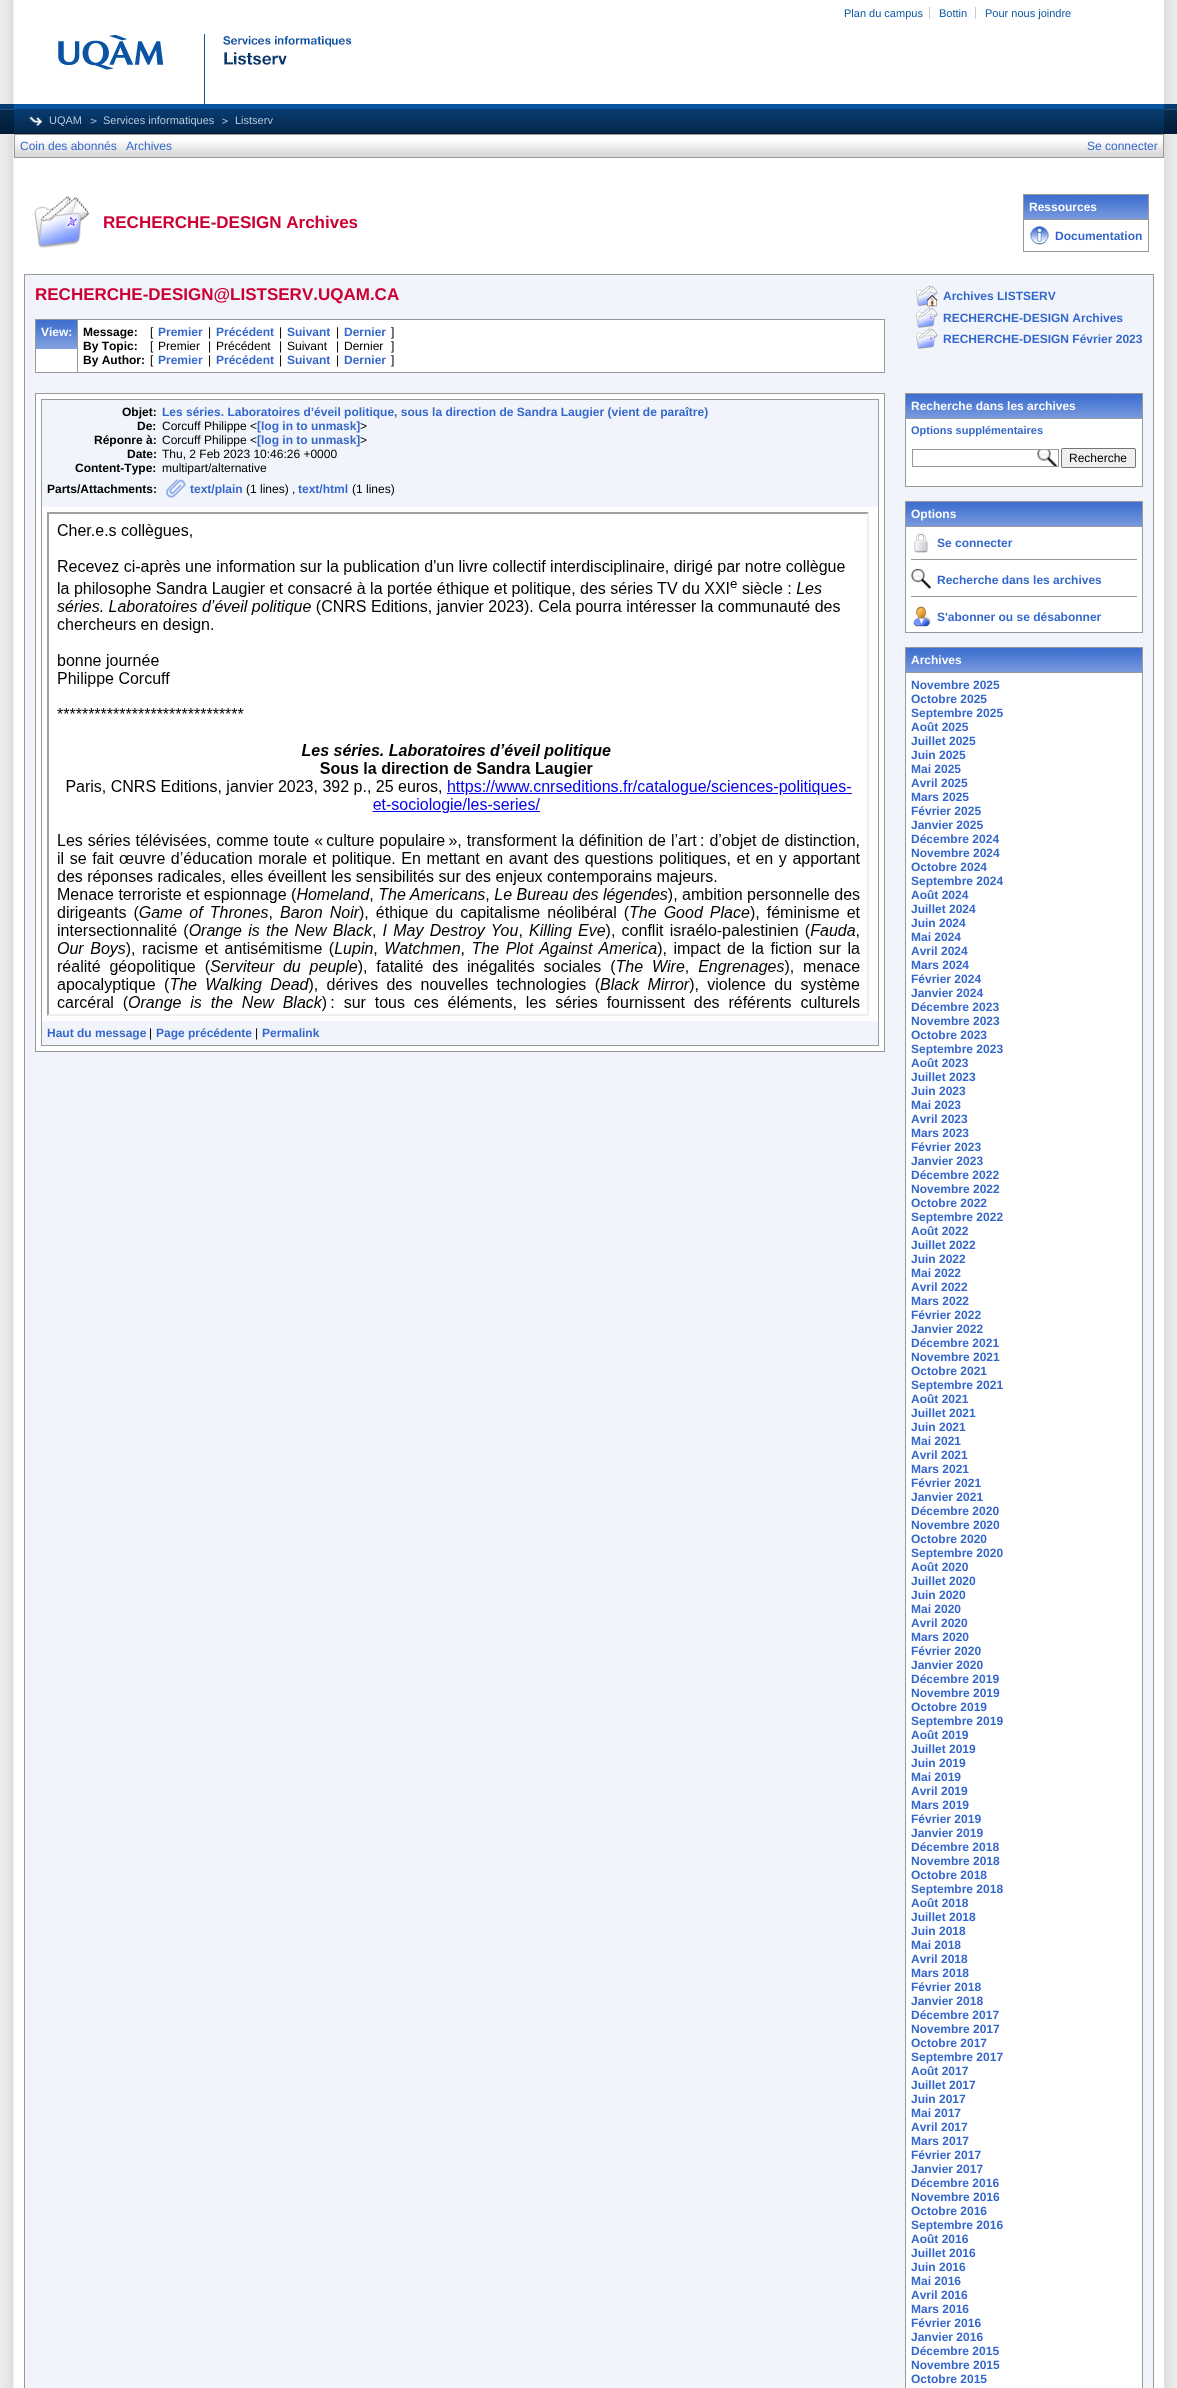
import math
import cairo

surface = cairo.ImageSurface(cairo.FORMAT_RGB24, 1177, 2388)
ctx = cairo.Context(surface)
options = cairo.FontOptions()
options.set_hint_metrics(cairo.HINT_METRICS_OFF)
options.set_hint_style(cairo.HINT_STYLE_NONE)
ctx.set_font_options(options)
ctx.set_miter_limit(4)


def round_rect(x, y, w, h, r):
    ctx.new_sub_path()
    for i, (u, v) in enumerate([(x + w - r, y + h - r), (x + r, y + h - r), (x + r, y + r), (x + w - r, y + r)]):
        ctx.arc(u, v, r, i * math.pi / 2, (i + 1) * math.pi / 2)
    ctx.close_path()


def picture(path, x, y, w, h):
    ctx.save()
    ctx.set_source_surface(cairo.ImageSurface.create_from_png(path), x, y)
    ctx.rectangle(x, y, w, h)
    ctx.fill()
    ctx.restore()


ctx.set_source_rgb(1, 1, 1)
ctx.paint()
picture("img1.png", 0, 0, 1177, 2388)
picture("img2.png", 0, 104, 1177, 30)
picture("img3.png", 14, 0, 1150, 133)
ctx.select_font_face("Liberation Sans")
ctx.set_font_size(11)
ctx.set_source_rgb(0.039, 0.333, 0.627)
ctx.move_to(844, 17)
ctx.show_text("Plan du campus")
ctx.set_source_rgb(0.757, 0.808, 0.859)
ctx.rectangle(929, 7, 1, 12)
ctx.fill()
ctx.set_source_rgb(0.039, 0.333, 0.627)
ctx.move_to(939, 17)
ctx.show_text("Bottin")
ctx.set_source_rgb(0.757, 0.808, 0.859)
ctx.rectangle(975, 7, 1, 12)
ctx.fill()
ctx.set_source_rgb(0.039, 0.333, 0.627)
ctx.move_to(985, 17)
ctx.show_text("Pour nous joindre")
picture("img4.png", 14, 34, 1150, 75)
picture("img5.png", 29, 116, 14, 10)
ctx.set_source_rgb(0.729, 0.804, 0.875)
ctx.move_to(49, 124)
ctx.show_text("UQAM")
picture("img6.png", 90, 118, 7, 6)
ctx.move_to(103, 124)
ctx.show_text("Services informatiques")
picture("img7.png", 222, 118, 6, 6)
ctx.move_to(235, 124)
ctx.show_text("Listserv")
picture("img8.png", 15, 141, 1148, 16)
ctx.rectangle(14.5, 134.5, 1149, 23)
ctx.set_source_rgb(0.6, 0.6, 0.6)
ctx.set_line_width(1)
ctx.stroke()
ctx.set_font_size(12)
ctx.set_source_rgb(0.2, 0.4, 0.8)
ctx.move_to(20, 150)
ctx.show_text("Coin des abonnés")
ctx.move_to(126, 150)
ctx.show_text("Archives")
ctx.move_to(1087, 150)
ctx.show_text("Se connecter")
picture("img9.png", 34, 196, 56, 52)
ctx.select_font_face("Liberation Sans", cairo.FONT_SLANT_NORMAL, cairo.FONT_WEIGHT_BOLD)
ctx.set_font_size(17)
ctx.set_source_rgb(0.8, 0, 0.2)
ctx.move_to(103, 228)
ctx.show_text("RECHERCHE-DESIGN Archives")
picture("img10.png", 1024, 195, 124, 24)
ctx.rectangle(1023.5, 194.5, 125, 25)
ctx.set_source_rgb(0.6, 0.6, 0.6)
ctx.stroke()
ctx.set_font_size(12)
ctx.set_source_rgb(1, 1, 1)
ctx.move_to(1029, 211)
ctx.show_text("Ressources")
ctx.set_source_rgb(0.6, 0.6, 0.6)
ctx.rectangle(1148, 220, 1, 32)
ctx.fill()
ctx.rectangle(1023, 251, 126, 1)
ctx.fill()
ctx.rectangle(1023, 220, 1, 32)
ctx.fill()
picture("img11.png", 1030, 226, 19, 19)
ctx.set_source_rgb(0.2, 0.4, 0.8)
ctx.move_to(1055, 240)
ctx.show_text("Documentation")
ctx.rectangle(24.5, 274.5, 1129, 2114)
ctx.set_source_rgb(0.6, 0.6, 0.6)
ctx.stroke()
ctx.set_source_rgb(0.945, 0.957, 0.98)
ctx.rectangle(25, 275, 1128, 2113)
ctx.fill()
ctx.set_font_size(17)
ctx.set_source_rgb(0.8, 0, 0.2)
ctx.move_to(35, 300)
ctx.show_text("RECHERCHE-DESIGN@LISTSERV.UQAM.CA")
ctx.rectangle(35.5, 319.5, 849, 53)
ctx.set_source_rgb(0.6, 0.6, 0.6)
ctx.stroke()
ctx.set_source_rgb(1, 1, 1)
ctx.rectangle(78, 320, 806, 52)
ctx.fill()
picture("img12.png", 36, 320, 41, 52)
ctx.set_source_rgb(0.6, 0.6, 0.6)
ctx.rectangle(77, 320, 1, 52)
ctx.fill()
ctx.set_font_size(12)
ctx.set_source_rgb(1, 1, 1)
ctx.move_to(41, 336)
ctx.show_text("View:")
ctx.set_source_rgb(0, 0, 0)
ctx.move_to(83, 336)
ctx.show_text("Message:")
ctx.select_font_face("Liberation Sans")
ctx.move_to(150, 336)
ctx.show_text("[")
ctx.select_font_face("Liberation Sans", cairo.FONT_SLANT_NORMAL, cairo.FONT_WEIGHT_BOLD)
ctx.set_source_rgb(0.2, 0.4, 0.8)
ctx.move_to(158, 336)
ctx.show_text("Premier")
ctx.select_font_face("Liberation Sans")
ctx.set_source_rgb(0, 0, 0)
ctx.move_to(208, 336)
ctx.show_text("|")
ctx.select_font_face("Liberation Sans", cairo.FONT_SLANT_NORMAL, cairo.FONT_WEIGHT_BOLD)
ctx.set_source_rgb(0.2, 0.4, 0.8)
ctx.move_to(216, 336)
ctx.show_text("Précédent")
ctx.select_font_face("Liberation Sans")
ctx.set_source_rgb(0, 0, 0)
ctx.move_to(279, 336)
ctx.show_text("|")
ctx.select_font_face("Liberation Sans", cairo.FONT_SLANT_NORMAL, cairo.FONT_WEIGHT_BOLD)
ctx.set_source_rgb(0.2, 0.4, 0.8)
ctx.move_to(287, 336)
ctx.show_text("Suivant")
ctx.select_font_face("Liberation Sans")
ctx.set_source_rgb(0, 0, 0)
ctx.move_to(336, 336)
ctx.show_text("|")
ctx.select_font_face("Liberation Sans", cairo.FONT_SLANT_NORMAL, cairo.FONT_WEIGHT_BOLD)
ctx.set_source_rgb(0.2, 0.4, 0.8)
ctx.move_to(344, 336)
ctx.show_text("Dernier")
ctx.select_font_face("Liberation Sans")
ctx.set_source_rgb(0, 0, 0)
ctx.move_to(391, 336)
ctx.show_text("]")
ctx.select_font_face("Liberation Sans", cairo.FONT_SLANT_NORMAL, cairo.FONT_WEIGHT_BOLD)
ctx.move_to(83, 350)
ctx.show_text("By Topic:")
ctx.select_font_face("Liberation Sans")
ctx.move_to(150, 350)
ctx.show_text("[")
ctx.move_to(158, 350)
ctx.show_text("Premier")
ctx.move_to(208, 350)
ctx.show_text("|")
ctx.move_to(216, 350)
ctx.show_text("Précédent")
ctx.move_to(279, 350)
ctx.show_text("|")
ctx.move_to(287, 350)
ctx.show_text("Suivant")
ctx.move_to(336, 350)
ctx.show_text("|")
ctx.move_to(344, 350)
ctx.show_text("Dernier")
ctx.move_to(391, 350)
ctx.show_text("]")
ctx.select_font_face("Liberation Sans", cairo.FONT_SLANT_NORMAL, cairo.FONT_WEIGHT_BOLD)
ctx.move_to(83, 364)
ctx.show_text("By Author:")
ctx.select_font_face("Liberation Sans")
ctx.move_to(150, 364)
ctx.show_text("[")
ctx.select_font_face("Liberation Sans", cairo.FONT_SLANT_NORMAL, cairo.FONT_WEIGHT_BOLD)
ctx.set_source_rgb(0.2, 0.4, 0.8)
ctx.move_to(158, 364)
ctx.show_text("Premier")
ctx.select_font_face("Liberation Sans")
ctx.set_source_rgb(0, 0, 0)
ctx.move_to(208, 364)
ctx.show_text("|")
ctx.select_font_face("Liberation Sans", cairo.FONT_SLANT_NORMAL, cairo.FONT_WEIGHT_BOLD)
ctx.set_source_rgb(0.2, 0.4, 0.8)
ctx.move_to(216, 364)
ctx.show_text("Précédent")
ctx.select_font_face("Liberation Sans")
ctx.set_source_rgb(0, 0, 0)
ctx.move_to(279, 364)
ctx.show_text("|")
ctx.select_font_face("Liberation Sans", cairo.FONT_SLANT_NORMAL, cairo.FONT_WEIGHT_BOLD)
ctx.set_source_rgb(0.2, 0.4, 0.8)
ctx.move_to(287, 364)
ctx.show_text("Suivant")
ctx.select_font_face("Liberation Sans")
ctx.set_source_rgb(0, 0, 0)
ctx.move_to(336, 364)
ctx.show_text("|")
ctx.select_font_face("Liberation Sans", cairo.FONT_SLANT_NORMAL, cairo.FONT_WEIGHT_BOLD)
ctx.set_source_rgb(0.2, 0.4, 0.8)
ctx.move_to(344, 364)
ctx.show_text("Dernier")
ctx.select_font_face("Liberation Sans")
ctx.set_source_rgb(0, 0, 0)
ctx.move_to(391, 364)
ctx.show_text("]")
picture("img13.png", 916, 285, 22, 22)
ctx.select_font_face("Liberation Sans", cairo.FONT_SLANT_NORMAL, cairo.FONT_WEIGHT_BOLD)
ctx.set_source_rgb(0.2, 0.4, 0.8)
ctx.move_to(943, 300)
ctx.show_text("Archives LISTSERV")
picture("img14.png", 916, 307, 22, 21)
ctx.move_to(943, 322)
ctx.show_text("RECHERCHE-DESIGN Archives")
picture("img14.png", 916, 328, 22, 21)
ctx.move_to(943, 343)
ctx.show_text("RECHERCHE-DESIGN Février 2023")
ctx.rectangle(35.5, 393.5, 849, 658)
ctx.set_source_rgb(0.6, 0.6, 0.6)
ctx.stroke()
ctx.set_source_rgb(1, 1, 1)
ctx.rectangle(36, 394, 848, 657)
ctx.fill()
ctx.rectangle(41.5, 399.5, 837, 646)
ctx.set_source_rgb(0.6, 0.6, 0.6)
ctx.stroke()
ctx.set_source_rgb(0.945, 0.957, 0.98)
ctx.rectangle(42, 400, 836, 107)
ctx.fill()
ctx.set_source_rgb(0, 0, 0)
ctx.move_to(122, 416)
ctx.show_text("Objet:")
ctx.set_source_rgb(0.2, 0.4, 0.8)
ctx.move_to(162, 416)
ctx.show_text("Les séries. Laboratoires d’éveil politique, sous la direction de Sandra Laugier (vient de paraître)")
ctx.set_source_rgb(0, 0, 0)
ctx.move_to(137, 430)
ctx.show_text("De:")
ctx.select_font_face("Liberation Sans")
ctx.move_to(162, 430)
ctx.show_text("Corcuff Philippe <")
ctx.select_font_face("Liberation Sans", cairo.FONT_SLANT_NORMAL, cairo.FONT_WEIGHT_BOLD)
ctx.set_source_rgb(0.2, 0.4, 0.8)
ctx.move_to(257, 430)
ctx.show_text("[log in to unmask]")
ctx.select_font_face("Liberation Sans")
ctx.set_source_rgb(0, 0, 0)
ctx.move_to(360, 430)
ctx.show_text(">")
ctx.select_font_face("Liberation Sans", cairo.FONT_SLANT_NORMAL, cairo.FONT_WEIGHT_BOLD)
ctx.move_to(94, 444)
ctx.show_text("Réponre à:")
ctx.select_font_face("Liberation Sans")
ctx.move_to(162, 444)
ctx.show_text("Corcuff Philippe <")
ctx.select_font_face("Liberation Sans", cairo.FONT_SLANT_NORMAL, cairo.FONT_WEIGHT_BOLD)
ctx.set_source_rgb(0.2, 0.4, 0.8)
ctx.move_to(257, 444)
ctx.show_text("[log in to unmask]")
ctx.select_font_face("Liberation Sans")
ctx.set_source_rgb(0, 0, 0)
ctx.move_to(360, 444)
ctx.show_text(">")
ctx.select_font_face("Liberation Sans", cairo.FONT_SLANT_NORMAL, cairo.FONT_WEIGHT_BOLD)
ctx.move_to(127, 458)
ctx.show_text("Date:")
ctx.select_font_face("Liberation Sans")
ctx.move_to(162, 458)
ctx.show_text("Thu, 2 Feb 2023 10:46:26 +0000")
ctx.select_font_face("Liberation Sans", cairo.FONT_SLANT_NORMAL, cairo.FONT_WEIGHT_BOLD)
ctx.move_to(75, 472)
ctx.show_text("Content-Type:")
ctx.select_font_face("Liberation Sans")
ctx.move_to(162, 472)
ctx.show_text("multipart/alternative")
ctx.select_font_face("Liberation Sans", cairo.FONT_SLANT_NORMAL, cairo.FONT_WEIGHT_BOLD)
ctx.move_to(47, 493)
ctx.show_text("Parts/Attachments:")
picture("img15.png", 166, 478, 20, 21)
ctx.set_source_rgb(0.2, 0.4, 0.8)
ctx.move_to(190, 493)
ctx.show_text("text/plain")
ctx.select_font_face("Liberation Sans")
ctx.set_source_rgb(0, 0, 0)
ctx.move_to(246, 493)
ctx.show_text("(1 lines) ,")
ctx.select_font_face("Liberation Sans", cairo.FONT_SLANT_NORMAL, cairo.FONT_WEIGHT_BOLD)
ctx.set_source_rgb(0.2, 0.4, 0.8)
ctx.move_to(298, 493)
ctx.show_text("text/html")
ctx.select_font_face("Liberation Sans")
ctx.set_source_rgb(0, 0, 0)
ctx.move_to(352, 493)
ctx.show_text("(1 lines)")
ctx.set_source_rgb(0.624, 0.624, 0.624)
ctx.new_path()
ctx.move_to(47, 512)
ctx.line_to(869, 512)
ctx.line_to(867, 514)
ctx.line_to(49, 514)
ctx.close_path()
ctx.fill()
ctx.set_source_rgb(0.933, 0.933, 0.933)
ctx.new_path()
ctx.move_to(869, 512)
ctx.line_to(869, 1016)
ctx.line_to(867, 1014)
ctx.line_to(867, 514)
ctx.close_path()
ctx.fill()
ctx.new_path()
ctx.move_to(869, 1016)
ctx.line_to(47, 1016)
ctx.line_to(49, 1014)
ctx.line_to(867, 1014)
ctx.close_path()
ctx.fill()
ctx.set_source_rgb(0.624, 0.624, 0.624)
ctx.new_path()
ctx.move_to(47, 1016)
ctx.line_to(47, 512)
ctx.line_to(49, 514)
ctx.line_to(49, 1014)
ctx.close_path()
ctx.fill()
picture("img16.png", 57, 524, 803, 487)
ctx.set_source_rgb(0.945, 0.957, 0.98)
ctx.rectangle(42, 1021, 836, 24)
ctx.fill()
ctx.select_font_face("Liberation Sans", cairo.FONT_SLANT_NORMAL, cairo.FONT_WEIGHT_BOLD)
ctx.set_source_rgb(0.2, 0.4, 0.8)
ctx.move_to(47, 1037)
ctx.show_text("Haut du message")
ctx.select_font_face("Liberation Sans")
ctx.set_source_rgb(0, 0, 0)
ctx.move_to(149, 1037)
ctx.show_text("|")
ctx.select_font_face("Liberation Sans", cairo.FONT_SLANT_NORMAL, cairo.FONT_WEIGHT_BOLD)
ctx.set_source_rgb(0.2, 0.4, 0.8)
ctx.move_to(156, 1037)
ctx.show_text("Page précédente")
ctx.select_font_face("Liberation Sans")
ctx.set_source_rgb(0, 0, 0)
ctx.move_to(255, 1037)
ctx.show_text("|")
ctx.select_font_face("Liberation Sans", cairo.FONT_SLANT_NORMAL, cairo.FONT_WEIGHT_BOLD)
ctx.set_source_rgb(0.2, 0.4, 0.8)
ctx.move_to(262, 1037)
ctx.show_text("Permalink")
picture("img17.png", 906, 394, 236, 24)
ctx.rectangle(905.5, 393.5, 237, 25)
ctx.set_source_rgb(0.6, 0.6, 0.6)
ctx.stroke()
ctx.set_source_rgb(1, 1, 1)
ctx.move_to(911, 410)
ctx.show_text("Recherche dans les archives")
ctx.rectangle(906, 419, 236, 67)
ctx.fill()
ctx.set_source_rgb(0.6, 0.6, 0.6)
ctx.rectangle(1142, 419, 1, 68)
ctx.fill()
ctx.rectangle(905, 486, 238, 1)
ctx.fill()
ctx.rectangle(905, 419, 1, 68)
ctx.fill()
ctx.set_font_size(11)
ctx.set_source_rgb(0.2, 0.4, 0.8)
ctx.move_to(911, 434)
ctx.show_text("Options supplémentaires")
picture("img18.png", 1037, 450, 20, 16)
ctx.rectangle(912.5, 449.5, 146, 17)
ctx.set_source_rgb(0.6, 0.6, 0.6)
ctx.stroke()
ctx.set_source_rgb(0.937, 0.937, 0.937)
round_rect(1061.5, 448.5, 74, 19, 1.5)
ctx.fill_preserve()
ctx.set_source_rgb(0.463, 0.463, 0.463)
ctx.stroke()
ctx.select_font_face("Liberation Sans")
ctx.set_font_size(12)
ctx.set_source_rgb(0, 0, 0)
ctx.move_to(1069, 462)
ctx.show_text("Recherche")
picture("img17.png", 906, 502, 236, 24)
ctx.rectangle(905.5, 501.5, 237, 25)
ctx.set_source_rgb(0.6, 0.6, 0.6)
ctx.stroke()
ctx.select_font_face("Liberation Sans", cairo.FONT_SLANT_NORMAL, cairo.FONT_WEIGHT_BOLD)
ctx.set_source_rgb(1, 1, 1)
ctx.move_to(911, 518)
ctx.show_text("Options")
ctx.rectangle(906, 527, 236, 105)
ctx.fill()
ctx.set_source_rgb(0.6, 0.6, 0.6)
ctx.rectangle(1142, 527, 1, 106)
ctx.fill()
ctx.rectangle(905, 632, 238, 1)
ctx.fill()
ctx.rectangle(905, 527, 1, 106)
ctx.fill()
picture("img19.png", 914, 532, 14, 21)
ctx.set_source_rgb(0.2, 0.4, 0.8)
ctx.move_to(937, 547)
ctx.show_text("Se connecter")
ctx.set_source_rgb(0.6, 0.6, 0.6)
ctx.rectangle(911, 559, 226, 1)
ctx.fill()
picture("img20.png", 911, 569, 20, 20)
ctx.set_source_rgb(0.2, 0.4, 0.8)
ctx.move_to(937, 584)
ctx.show_text("Recherche dans les archives")
ctx.set_source_rgb(0.6, 0.6, 0.6)
ctx.rectangle(911, 596, 226, 1)
ctx.fill()
picture("img21.png", 913, 606, 18, 21)
ctx.set_source_rgb(0.2, 0.4, 0.8)
ctx.move_to(937, 621)
ctx.show_text("S'abonner ou se désabonner")
picture("img17.png", 906, 648, 236, 24)
ctx.rectangle(905.5, 647.5, 237, 25)
ctx.set_source_rgb(0.6, 0.6, 0.6)
ctx.stroke()
ctx.set_source_rgb(1, 1, 1)
ctx.move_to(911, 664)
ctx.show_text("Archives")
ctx.rectangle(906, 673, 236, 1715)
ctx.fill()
ctx.set_source_rgb(0.6, 0.6, 0.6)
ctx.rectangle(1142, 673, 1, 1715)
ctx.fill()
ctx.rectangle(905, 673, 1, 1715)
ctx.fill()
ctx.set_source_rgb(0.2, 0.4, 0.8)
ctx.move_to(911, 689)
ctx.show_text("Novembre 2025")
ctx.move_to(911, 703)
ctx.show_text("Octobre 2025")
ctx.move_to(911, 717)
ctx.show_text("Septembre 2025")
ctx.move_to(911, 731)
ctx.show_text("Août 2025")
ctx.move_to(911, 745)
ctx.show_text("Juillet 2025")
ctx.move_to(911, 759)
ctx.show_text("Juin 2025")
ctx.move_to(911, 773)
ctx.show_text("Mai 2025")
ctx.move_to(911, 787)
ctx.show_text("Avril 2025")
ctx.move_to(911, 801)
ctx.show_text("Mars 2025")
ctx.move_to(911, 815)
ctx.show_text("Février 2025")
ctx.move_to(911, 829)
ctx.show_text("Janvier 2025")
ctx.move_to(911, 843)
ctx.show_text("Décembre 2024")
ctx.move_to(911, 857)
ctx.show_text("Novembre 2024")
ctx.move_to(911, 871)
ctx.show_text("Octobre 2024")
ctx.move_to(911, 885)
ctx.show_text("Septembre 2024")
ctx.move_to(911, 899)
ctx.show_text("Août 2024")
ctx.move_to(911, 913)
ctx.show_text("Juillet 2024")
ctx.move_to(911, 927)
ctx.show_text("Juin 2024")
ctx.move_to(911, 941)
ctx.show_text("Mai 2024")
ctx.move_to(911, 955)
ctx.show_text("Avril 2024")
ctx.move_to(911, 969)
ctx.show_text("Mars 2024")
ctx.move_to(911, 983)
ctx.show_text("Février 2024")
ctx.move_to(911, 997)
ctx.show_text("Janvier 2024")
ctx.move_to(911, 1011)
ctx.show_text("Décembre 2023")
ctx.move_to(911, 1025)
ctx.show_text("Novembre 2023")
ctx.move_to(911, 1039)
ctx.show_text("Octobre 2023")
ctx.move_to(911, 1053)
ctx.show_text("Septembre 2023")
ctx.move_to(911, 1067)
ctx.show_text("Août 2023")
ctx.move_to(911, 1081)
ctx.show_text("Juillet 2023")
ctx.move_to(911, 1095)
ctx.show_text("Juin 2023")
ctx.move_to(911, 1109)
ctx.show_text("Mai 2023")
ctx.move_to(911, 1123)
ctx.show_text("Avril 2023")
ctx.move_to(911, 1137)
ctx.show_text("Mars 2023")
ctx.move_to(911, 1151)
ctx.show_text("Février 2023")
ctx.move_to(911, 1165)
ctx.show_text("Janvier 2023")
ctx.move_to(911, 1179)
ctx.show_text("Décembre 2022")
ctx.move_to(911, 1193)
ctx.show_text("Novembre 2022")
ctx.move_to(911, 1207)
ctx.show_text("Octobre 2022")
ctx.move_to(911, 1221)
ctx.show_text("Septembre 2022")
ctx.move_to(911, 1235)
ctx.show_text("Août 2022")
ctx.move_to(911, 1249)
ctx.show_text("Juillet 2022")
ctx.move_to(911, 1263)
ctx.show_text("Juin 2022")
ctx.move_to(911, 1277)
ctx.show_text("Mai 2022")
ctx.move_to(911, 1291)
ctx.show_text("Avril 2022")
ctx.move_to(911, 1305)
ctx.show_text("Mars 2022")
ctx.move_to(911, 1319)
ctx.show_text("Février 2022")
ctx.move_to(911, 1333)
ctx.show_text("Janvier 2022")
ctx.move_to(911, 1347)
ctx.show_text("Décembre 2021")
ctx.move_to(911, 1361)
ctx.show_text("Novembre 2021")
ctx.move_to(911, 1375)
ctx.show_text("Octobre 2021")
ctx.move_to(911, 1389)
ctx.show_text("Septembre 2021")
ctx.move_to(911, 1403)
ctx.show_text("Août 2021")
ctx.move_to(911, 1417)
ctx.show_text("Juillet 2021")
ctx.move_to(911, 1431)
ctx.show_text("Juin 2021")
ctx.move_to(911, 1445)
ctx.show_text("Mai 2021")
ctx.move_to(911, 1459)
ctx.show_text("Avril 2021")
ctx.move_to(911, 1473)
ctx.show_text("Mars 2021")
ctx.move_to(911, 1487)
ctx.show_text("Février 2021")
ctx.move_to(911, 1501)
ctx.show_text("Janvier 2021")
ctx.move_to(911, 1515)
ctx.show_text("Décembre 2020")
ctx.move_to(911, 1529)
ctx.show_text("Novembre 2020")
ctx.move_to(911, 1543)
ctx.show_text("Octobre 2020")
ctx.move_to(911, 1557)
ctx.show_text("Septembre 2020")
ctx.move_to(911, 1571)
ctx.show_text("Août 2020")
ctx.move_to(911, 1585)
ctx.show_text("Juillet 2020")
ctx.move_to(911, 1599)
ctx.show_text("Juin 2020")
ctx.move_to(911, 1613)
ctx.show_text("Mai 2020")
ctx.move_to(911, 1627)
ctx.show_text("Avril 2020")
ctx.move_to(911, 1641)
ctx.show_text("Mars 2020")
ctx.move_to(911, 1655)
ctx.show_text("Février 2020")
ctx.move_to(911, 1669)
ctx.show_text("Janvier 2020")
ctx.move_to(911, 1683)
ctx.show_text("Décembre 2019")
ctx.move_to(911, 1697)
ctx.show_text("Novembre 2019")
ctx.move_to(911, 1711)
ctx.show_text("Octobre 2019")
ctx.move_to(911, 1725)
ctx.show_text("Septembre 2019")
ctx.move_to(911, 1739)
ctx.show_text("Août 2019")
ctx.move_to(911, 1753)
ctx.show_text("Juillet 2019")
ctx.move_to(911, 1767)
ctx.show_text("Juin 2019")
ctx.move_to(911, 1781)
ctx.show_text("Mai 2019")
ctx.move_to(911, 1795)
ctx.show_text("Avril 2019")
ctx.move_to(911, 1809)
ctx.show_text("Mars 2019")
ctx.move_to(911, 1823)
ctx.show_text("Février 2019")
ctx.move_to(911, 1837)
ctx.show_text("Janvier 2019")
ctx.move_to(911, 1851)
ctx.show_text("Décembre 2018")
ctx.move_to(911, 1865)
ctx.show_text("Novembre 2018")
ctx.move_to(911, 1879)
ctx.show_text("Octobre 2018")
ctx.move_to(911, 1893)
ctx.show_text("Septembre 2018")
ctx.move_to(911, 1907)
ctx.show_text("Août 2018")
ctx.move_to(911, 1921)
ctx.show_text("Juillet 2018")
ctx.move_to(911, 1935)
ctx.show_text("Juin 2018")
ctx.move_to(911, 1949)
ctx.show_text("Mai 2018")
ctx.move_to(911, 1963)
ctx.show_text("Avril 2018")
ctx.move_to(911, 1977)
ctx.show_text("Mars 2018")
ctx.move_to(911, 1991)
ctx.show_text("Février 2018")
ctx.move_to(911, 2005)
ctx.show_text("Janvier 2018")
ctx.move_to(911, 2019)
ctx.show_text("Décembre 2017")
ctx.move_to(911, 2033)
ctx.show_text("Novembre 2017")
ctx.move_to(911, 2047)
ctx.show_text("Octobre 2017")
ctx.move_to(911, 2061)
ctx.show_text("Septembre 2017")
ctx.move_to(911, 2075)
ctx.show_text("Août 2017")
ctx.move_to(911, 2089)
ctx.show_text("Juillet 2017")
ctx.move_to(911, 2103)
ctx.show_text("Juin 2017")
ctx.move_to(911, 2117)
ctx.show_text("Mai 2017")
ctx.move_to(911, 2131)
ctx.show_text("Avril 2017")
ctx.move_to(911, 2145)
ctx.show_text("Mars 2017")
ctx.move_to(911, 2159)
ctx.show_text("Février 2017")
ctx.move_to(911, 2173)
ctx.show_text("Janvier 2017")
ctx.move_to(911, 2187)
ctx.show_text("Décembre 2016")
ctx.move_to(911, 2201)
ctx.show_text("Novembre 2016")
ctx.move_to(911, 2215)
ctx.show_text("Octobre 2016")
ctx.move_to(911, 2229)
ctx.show_text("Septembre 2016")
ctx.move_to(911, 2243)
ctx.show_text("Août 2016")
ctx.move_to(911, 2257)
ctx.show_text("Juillet 2016")
ctx.move_to(911, 2271)
ctx.show_text("Juin 2016")
ctx.move_to(911, 2285)
ctx.show_text("Mai 2016")
ctx.move_to(911, 2299)
ctx.show_text("Avril 2016")
ctx.move_to(911, 2313)
ctx.show_text("Mars 2016")
ctx.move_to(911, 2327)
ctx.show_text("Février 2016")
ctx.move_to(911, 2341)
ctx.show_text("Janvier 2016")
ctx.move_to(911, 2355)
ctx.show_text("Décembre 2015")
ctx.move_to(911, 2369)
ctx.show_text("Novembre 2015")
ctx.move_to(911, 2383)
ctx.show_text("Octobre 2015")
ctx.set_source_rgb(1, 1, 1)
ctx.rectangle(1163, 158, 1, 2230)
ctx.fill()
surface.write_to_png("page.png")
